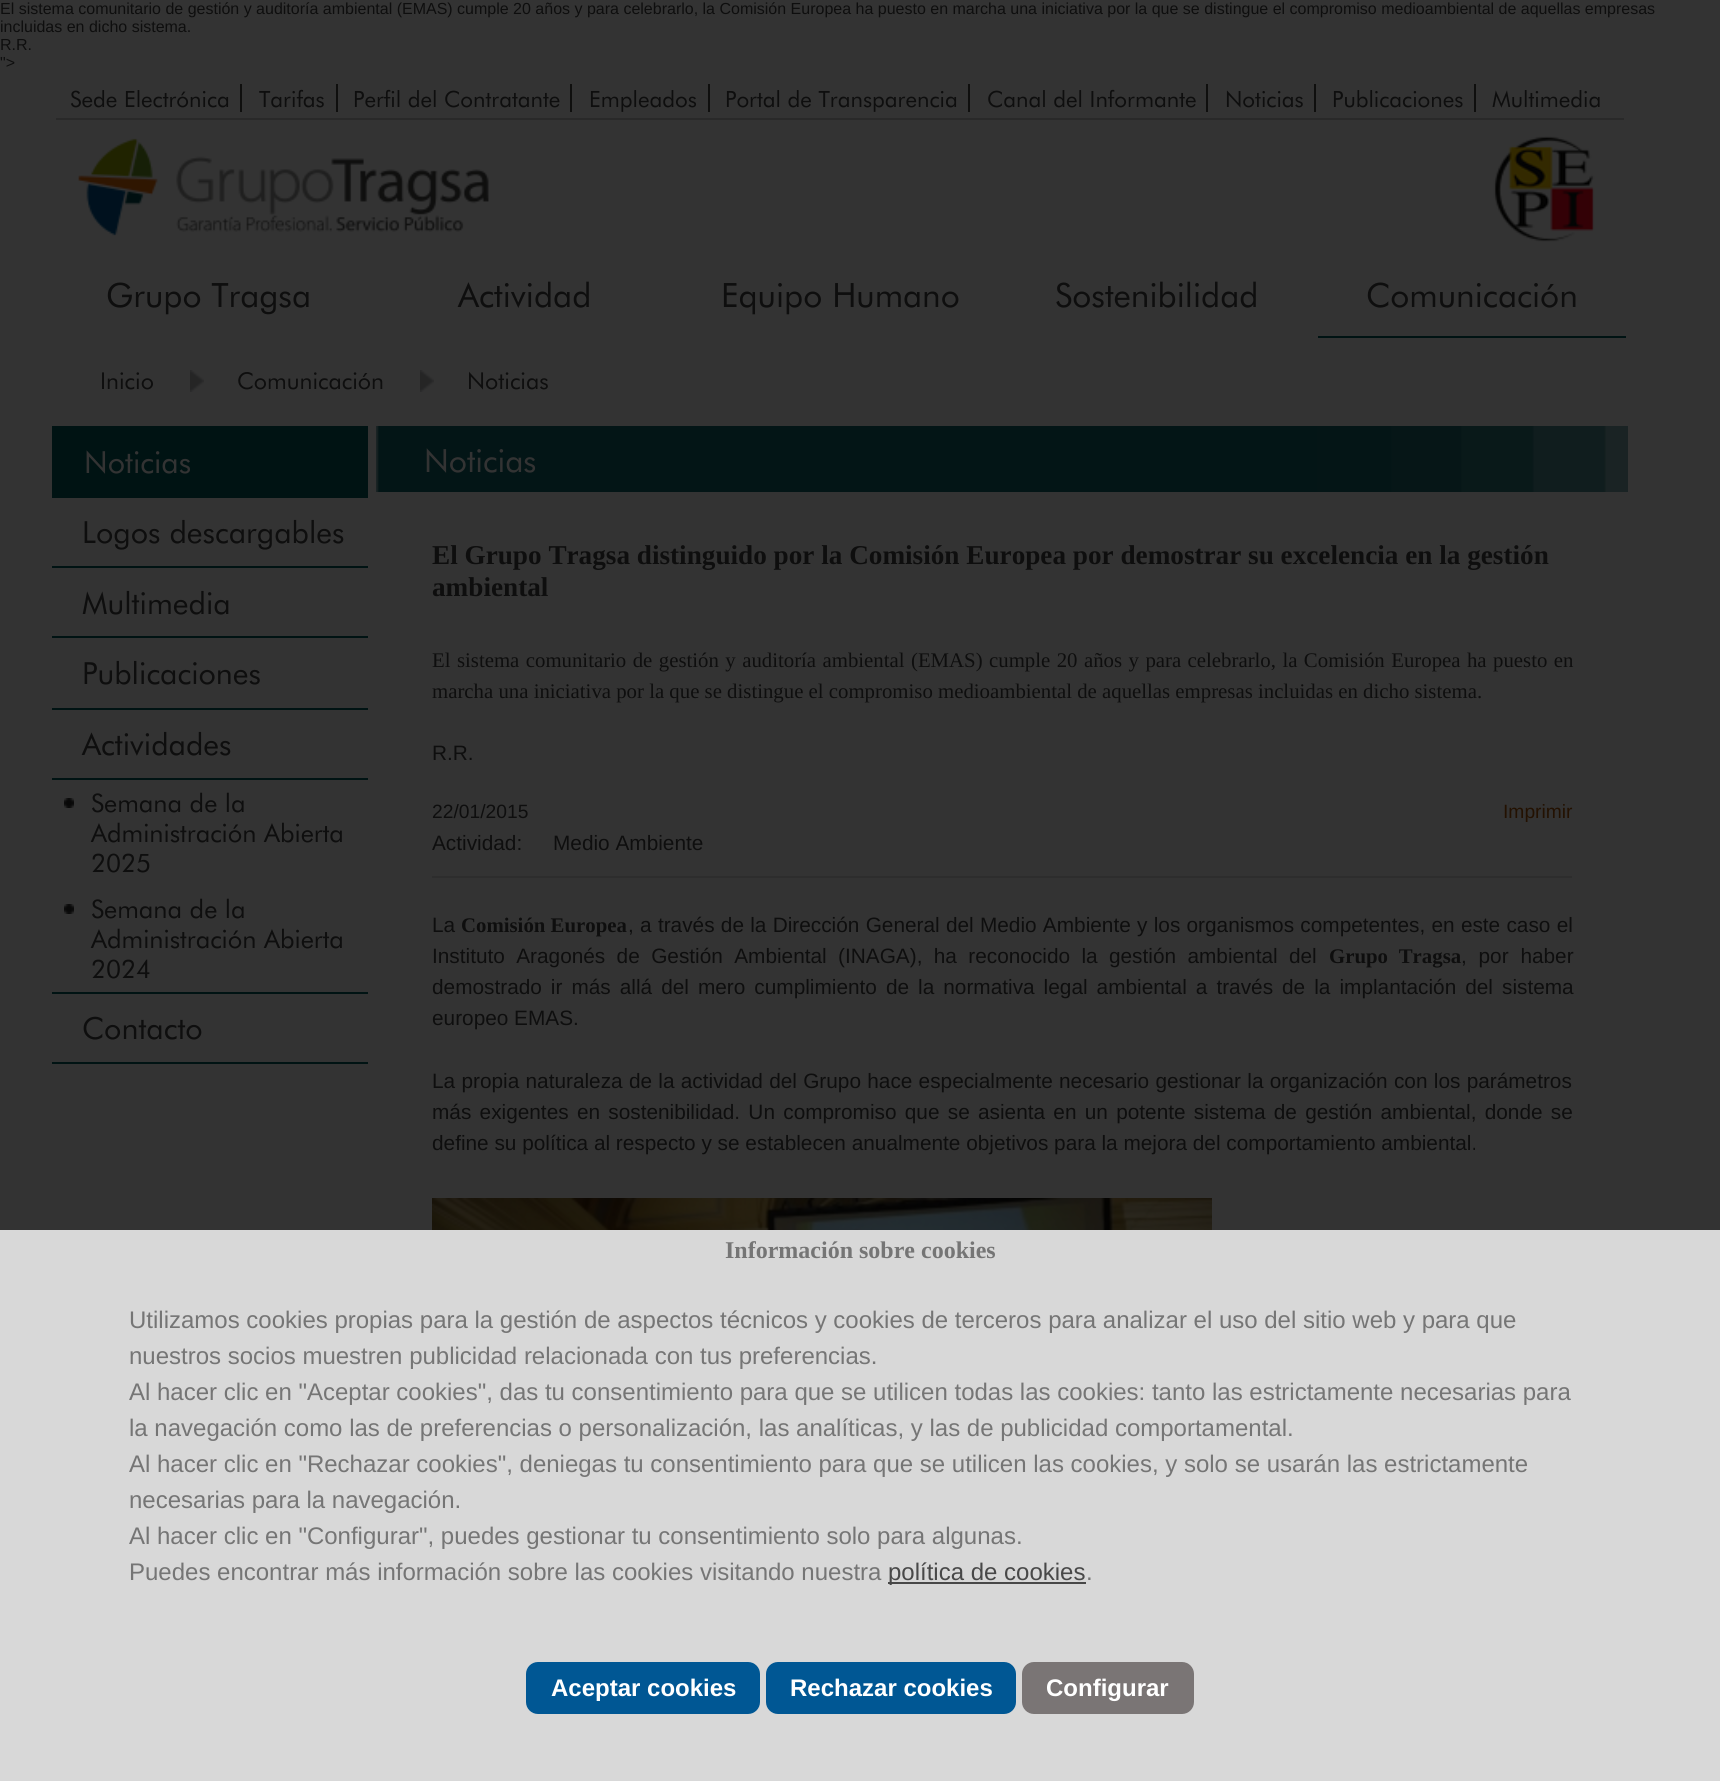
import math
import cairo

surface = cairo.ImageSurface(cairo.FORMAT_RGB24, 1720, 1781)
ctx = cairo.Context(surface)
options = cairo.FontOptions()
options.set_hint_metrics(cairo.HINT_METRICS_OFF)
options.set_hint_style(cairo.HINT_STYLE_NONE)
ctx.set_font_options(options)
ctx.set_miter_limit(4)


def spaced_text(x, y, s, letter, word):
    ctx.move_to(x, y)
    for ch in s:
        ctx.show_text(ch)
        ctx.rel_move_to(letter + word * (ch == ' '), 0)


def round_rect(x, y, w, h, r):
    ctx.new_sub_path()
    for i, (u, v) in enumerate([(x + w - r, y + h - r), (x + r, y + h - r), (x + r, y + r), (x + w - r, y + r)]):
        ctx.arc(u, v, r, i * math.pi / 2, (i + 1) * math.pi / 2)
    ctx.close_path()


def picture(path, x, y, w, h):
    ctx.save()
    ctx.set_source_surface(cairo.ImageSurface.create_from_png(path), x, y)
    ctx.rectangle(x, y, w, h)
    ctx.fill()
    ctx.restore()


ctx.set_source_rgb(0.2, 0.2, 0.2)
ctx.paint()
ctx.select_font_face("Liberation Sans")
ctx.set_font_size(16)
ctx.set_source_rgb(0.055, 0.055, 0.055)
ctx.move_to(0, 14)
ctx.show_text("El sistema comunitario de gestión y auditoría ambiental (EMAS) cumple 20 años y para celebrarlo, la Comisión Europea ha puesto en marcha una iniciativa por la que se distingue el compromiso medioambiental de aquellas empresas")
ctx.move_to(0, 32)
ctx.show_text("incluidas en dicho sistema.")
ctx.move_to(0, 50)
ctx.show_text("R.R.")
ctx.move_to(0, 68)
ctx.show_text("\">")
ctx.set_source_rgb(0.161, 0.161, 0.161)
ctx.rectangle(56, 118, 1568, 2)
ctx.fill()
ctx.set_source_rgb(0.059, 0.059, 0.055)
ctx.rectangle(240, 84, 2, 28)
ctx.fill()
ctx.select_font_face("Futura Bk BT")
ctx.set_font_size(22.4)
ctx.set_source_rgb(0.055, 0.055, 0.055)
ctx.move_to(70, 107)
ctx.show_text("Sede Electrónica")
ctx.set_source_rgb(0.059, 0.059, 0.055)
ctx.rectangle(336, 84, 2, 28)
ctx.fill()
ctx.set_source_rgb(0.055, 0.055, 0.055)
ctx.move_to(259, 107)
ctx.show_text("Tarifas")
ctx.set_source_rgb(0.059, 0.059, 0.055)
ctx.rectangle(570, 84, 2, 28)
ctx.fill()
ctx.set_source_rgb(0.055, 0.055, 0.055)
ctx.move_to(353, 107)
ctx.show_text("Perfil del Contratante")
ctx.set_source_rgb(0.059, 0.059, 0.055)
ctx.rectangle(708, 84, 2, 28)
ctx.fill()
ctx.set_source_rgb(0.055, 0.055, 0.055)
ctx.move_to(589, 107)
ctx.show_text("Empleados")
ctx.set_source_rgb(0.059, 0.059, 0.055)
ctx.rectangle(968, 84, 2, 28)
ctx.fill()
ctx.set_source_rgb(0.055, 0.055, 0.055)
ctx.move_to(725, 107)
ctx.show_text("Portal de Transparencia")
ctx.set_source_rgb(0.059, 0.059, 0.055)
ctx.rectangle(1206, 84, 2, 28)
ctx.fill()
ctx.set_source_rgb(0.055, 0.055, 0.055)
ctx.move_to(987, 107)
ctx.show_text("Canal del Informante")
ctx.set_source_rgb(0.059, 0.059, 0.055)
ctx.rectangle(1314, 84, 2, 28)
ctx.fill()
ctx.set_source_rgb(0.055, 0.055, 0.055)
ctx.move_to(1225, 107)
ctx.show_text("Noticias")
ctx.set_source_rgb(0.059, 0.059, 0.055)
ctx.rectangle(1474, 84, 2, 28)
ctx.fill()
ctx.set_source_rgb(0.055, 0.055, 0.055)
ctx.move_to(1332, 107)
ctx.show_text("Publicaciones")
ctx.move_to(1492, 107)
ctx.show_text("Multimedia")
picture("img1.png", 78, 138, 411, 98)
picture("img2.png", 1493, 136, 102, 106)
ctx.set_font_size(33.5)
ctx.move_to(106, 307)
ctx.show_text("Grupo Tragsa")
ctx.move_to(458, 307)
ctx.show_text("Actividad")
ctx.move_to(721, 307)
ctx.show_text("Equipo Humano")
ctx.move_to(1055, 307)
ctx.show_text("Sostenibilidad")
ctx.set_source_rgb(0, 0.075, 0.078)
ctx.rectangle(1318, 336, 308, 2)
ctx.fill()
ctx.set_source_rgb(0.055, 0.055, 0.055)
ctx.move_to(1366, 307)
ctx.show_text("Comunicación")
picture("img3.png", 190, 370, 14, 22)
ctx.set_font_size(23.25)
ctx.move_to(100, 389)
ctx.show_text("Inicio")
picture("img3.png", 420, 370, 14, 22)
ctx.move_to(237, 389)
ctx.show_text("Comunicación")
ctx.move_to(467, 389)
ctx.show_text("Noticias")
ctx.set_source_rgb(0, 0.075, 0.078)
ctx.rectangle(52, 426, 316, 72)
ctx.fill()
ctx.set_font_size(30.5)
ctx.set_source_rgb(0.2, 0.2, 0.2)
ctx.move_to(84, 473)
ctx.show_text("Noticias")
ctx.set_source_rgb(0, 0.075, 0.078)
ctx.rectangle(52, 566, 316, 2)
ctx.fill()
ctx.set_source_rgb(0.055, 0.055, 0.055)
ctx.move_to(82, 543)
ctx.show_text("Logos descargables")
ctx.set_source_rgb(0, 0.075, 0.078)
ctx.rectangle(52, 636, 316, 2)
ctx.fill()
ctx.set_source_rgb(0.055, 0.055, 0.055)
ctx.move_to(82, 614)
ctx.show_text("Multimedia")
ctx.set_source_rgb(0, 0.075, 0.078)
ctx.rectangle(52, 708, 316, 2)
ctx.fill()
ctx.set_source_rgb(0.055, 0.055, 0.055)
ctx.move_to(82, 684)
ctx.show_text("Publicaciones")
ctx.set_source_rgb(0, 0.075, 0.078)
ctx.rectangle(52, 778, 316, 2)
ctx.fill()
ctx.set_source_rgb(0.055, 0.055, 0.055)
ctx.move_to(82, 755)
ctx.show_text("Actividades")
ctx.set_source_rgb(0, 0.075, 0.078)
ctx.rectangle(52, 992, 316, 2)
ctx.fill()
picture("img4.png", 64, 798, 10, 10)
ctx.set_font_size(25.5)
ctx.set_source_rgb(0.055, 0.055, 0.055)
ctx.move_to(91, 812)
ctx.show_text("Semana de la")
ctx.move_to(91, 842)
ctx.show_text("Administración Abierta")
ctx.move_to(91, 872)
ctx.show_text("2025")
picture("img4.png", 64, 904, 10, 10)
ctx.move_to(91, 918)
ctx.show_text("Semana de la")
ctx.move_to(91, 948)
ctx.show_text("Administración Abierta")
ctx.move_to(91, 978)
ctx.show_text("2024")
ctx.set_source_rgb(0, 0.075, 0.078)
ctx.rectangle(52, 1062, 316, 2)
ctx.fill()
ctx.set_font_size(30.5)
ctx.set_source_rgb(0.055, 0.055, 0.055)
ctx.move_to(82, 1039)
ctx.show_text("Contacto")
picture("img5.png", 376, 426, 1252, 66)
ctx.set_font_size(32)
ctx.set_source_rgb(0.2, 0.2, 0.2)
ctx.move_to(424, 472)
ctx.show_text("Noticias")
ctx.select_font_face("Liberation Serif", cairo.FONT_SLANT_NORMAL, cairo.FONT_WEIGHT_BOLD)
ctx.set_font_size(27.2)
ctx.set_source_rgb(0.055, 0.055, 0.055)
ctx.move_to(432, 564)
ctx.show_text("El Grupo Tragsa distinguido por la Comisión Europea por demostrar su excelencia en la gestión")
ctx.move_to(432, 596)
ctx.show_text("ambiental")
ctx.select_font_face("Liberation Serif")
ctx.set_font_size(20.8)
spaced_text(432, 667, "El sistema comunitario de gestión y auditoría ambiental (EMAS) cumple 20 años y para celebrarlo, la Comisión Europea ha puesto en", 0, 1.25)
ctx.move_to(432, 698)
ctx.show_text("marcha una iniciativa por la que se distingue el compromiso medioambiental de aquellas empresas incluidas en dicho sistema.")
ctx.select_font_face("Liberation Sans")
ctx.move_to(432, 760)
ctx.show_text("R.R.")
ctx.set_source_rgb(0.176, 0.176, 0.176)
ctx.rectangle(432, 876, 1140, 2)
ctx.fill()
ctx.set_font_size(19.25)
ctx.set_source_rgb(0.055, 0.055, 0.055)
ctx.move_to(432, 818)
ctx.show_text("22/01/2015")
ctx.set_source_rgb(0.137, 0.067, 0.004)
ctx.move_to(1503, 818)
ctx.show_text("Imprimir")
ctx.set_font_size(20.8)
ctx.set_source_rgb(0.055, 0.055, 0.055)
ctx.move_to(432, 850)
ctx.show_text("Actividad:")
ctx.move_to(553, 850)
ctx.show_text("Medio Ambiente")
ctx.move_to(432, 932)
ctx.show_text("La")
ctx.select_font_face("Liberation Serif", cairo.FONT_SLANT_NORMAL, cairo.FONT_WEIGHT_BOLD)
ctx.move_to(461, 932)
ctx.show_text("Comisión Europea")
ctx.select_font_face("Liberation Sans")
spaced_text(628, 932, ", a través de la Dirección General del Medio Ambiente y los organismos competentes, en este caso el", 0, 0.5)
spaced_text(432, 963, "Instituto Aragonés de Gestión Ambiental (INAGA), ha reconocido la gestión ambiental del", 0, 5.6)
ctx.select_font_face("Liberation Serif", cairo.FONT_SLANT_NORMAL, cairo.FONT_WEIGHT_BOLD)
spaced_text(1329, 963, "Grupo Tragsa", 0, 5.6)
ctx.select_font_face("Liberation Sans")
spaced_text(1461, 963, ", por haber", 0, 6)
spaced_text(432, 994, "demostrado ir más allá del mero cumplimiento de la normativa legal ambiental a través de la implantación del sistema", 0, 3.25)
ctx.move_to(432, 1025)
ctx.show_text("europeo EMAS.")
spaced_text(432, 1088, "La propia naturaleza de la actividad del Grupo hace especialmente necesario gestionar la organización con los parámetros", 0, 0.5)
spaced_text(432, 1119, "más exigentes en sostenibilidad. Un compromiso que se asienta en un potente sistema de gestión ambiental, donde se", 0, 2.5)
ctx.move_to(432, 1150)
ctx.show_text("define su política al respecto y se establecen anualmente objetivos para la mejora del comportamiento ambiental.")
picture("img6.png", 432, 1198, 780, 32)
ctx.set_source_rgb(0.847, 0.847, 0.847)
ctx.rectangle(0, 1230, 1720, 551)
ctx.fill()
ctx.select_font_face("Liberation Serif", cairo.FONT_SLANT_NORMAL, cairo.FONT_WEIGHT_BOLD)
ctx.set_font_size(24)
ctx.set_source_rgb(0.459, 0.459, 0.459)
ctx.move_to(725, 1258)
ctx.show_text("Información sobre cookies")
ctx.select_font_face("Liberation Sans")
ctx.move_to(129, 1328)
ctx.show_text("Utilizamos cookies propias para la gestión de aspectos técnicos y cookies de terceros para analizar el uso del sitio web y para que")
ctx.move_to(129, 1364)
ctx.show_text("nuestros socios muestren publicidad relacionada con tus preferencias.")
ctx.move_to(129, 1400)
ctx.show_text("Al hacer clic en \"Aceptar cookies\", das tu consentimiento para que se utilicen todas las cookies: tanto las estrictamente necesarias para")
ctx.move_to(129, 1436)
ctx.show_text("la navegación como las de preferencias o personalización, las analíticas, y las de publicidad comportamental.")
ctx.move_to(129, 1472)
ctx.show_text("Al hacer clic en \"Rechazar cookies\", deniegas tu consentimiento para que se utilicen las cookies, y solo se usarán las estrictamente")
ctx.move_to(129, 1508)
ctx.show_text("necesarias para la navegación.")
ctx.move_to(129, 1544)
ctx.show_text("Al hacer clic en \"Configurar\", puedes gestionar tu consentimiento solo para algunas.")
ctx.move_to(129, 1580)
ctx.show_text("Puedes encontrar más información sobre las cookies visitando nuestra")
ctx.set_source_rgb(0.282, 0.282, 0.282)
ctx.rectangle(888, 1582, 198, 2)
ctx.fill()
ctx.move_to(888, 1580)
ctx.show_text("política de cookies")
ctx.set_source_rgb(0.459, 0.459, 0.459)
ctx.move_to(1086, 1580)
ctx.show_text(".")
ctx.set_source_rgb(0, 0.341, 0.58)
round_rect(526, 1662, 234, 52, 12)
ctx.fill()
ctx.select_font_face("Liberation Sans", cairo.FONT_SLANT_NORMAL, cairo.FONT_WEIGHT_BOLD)
ctx.set_source_rgb(1, 1, 1)
ctx.move_to(551, 1696)
ctx.show_text("Aceptar cookies")
ctx.set_source_rgb(0, 0.341, 0.58)
round_rect(766, 1662, 250, 52, 12)
ctx.fill()
ctx.set_source_rgb(1, 1, 1)
ctx.move_to(790, 1696)
ctx.show_text("Rechazar cookies")
ctx.set_source_rgb(0.478, 0.459, 0.459)
round_rect(1022, 1662, 172, 52, 12)
ctx.fill()
ctx.set_source_rgb(1, 1, 1)
ctx.move_to(1046, 1696)
ctx.show_text("Configurar")
surface.write_to_png("page.png")
